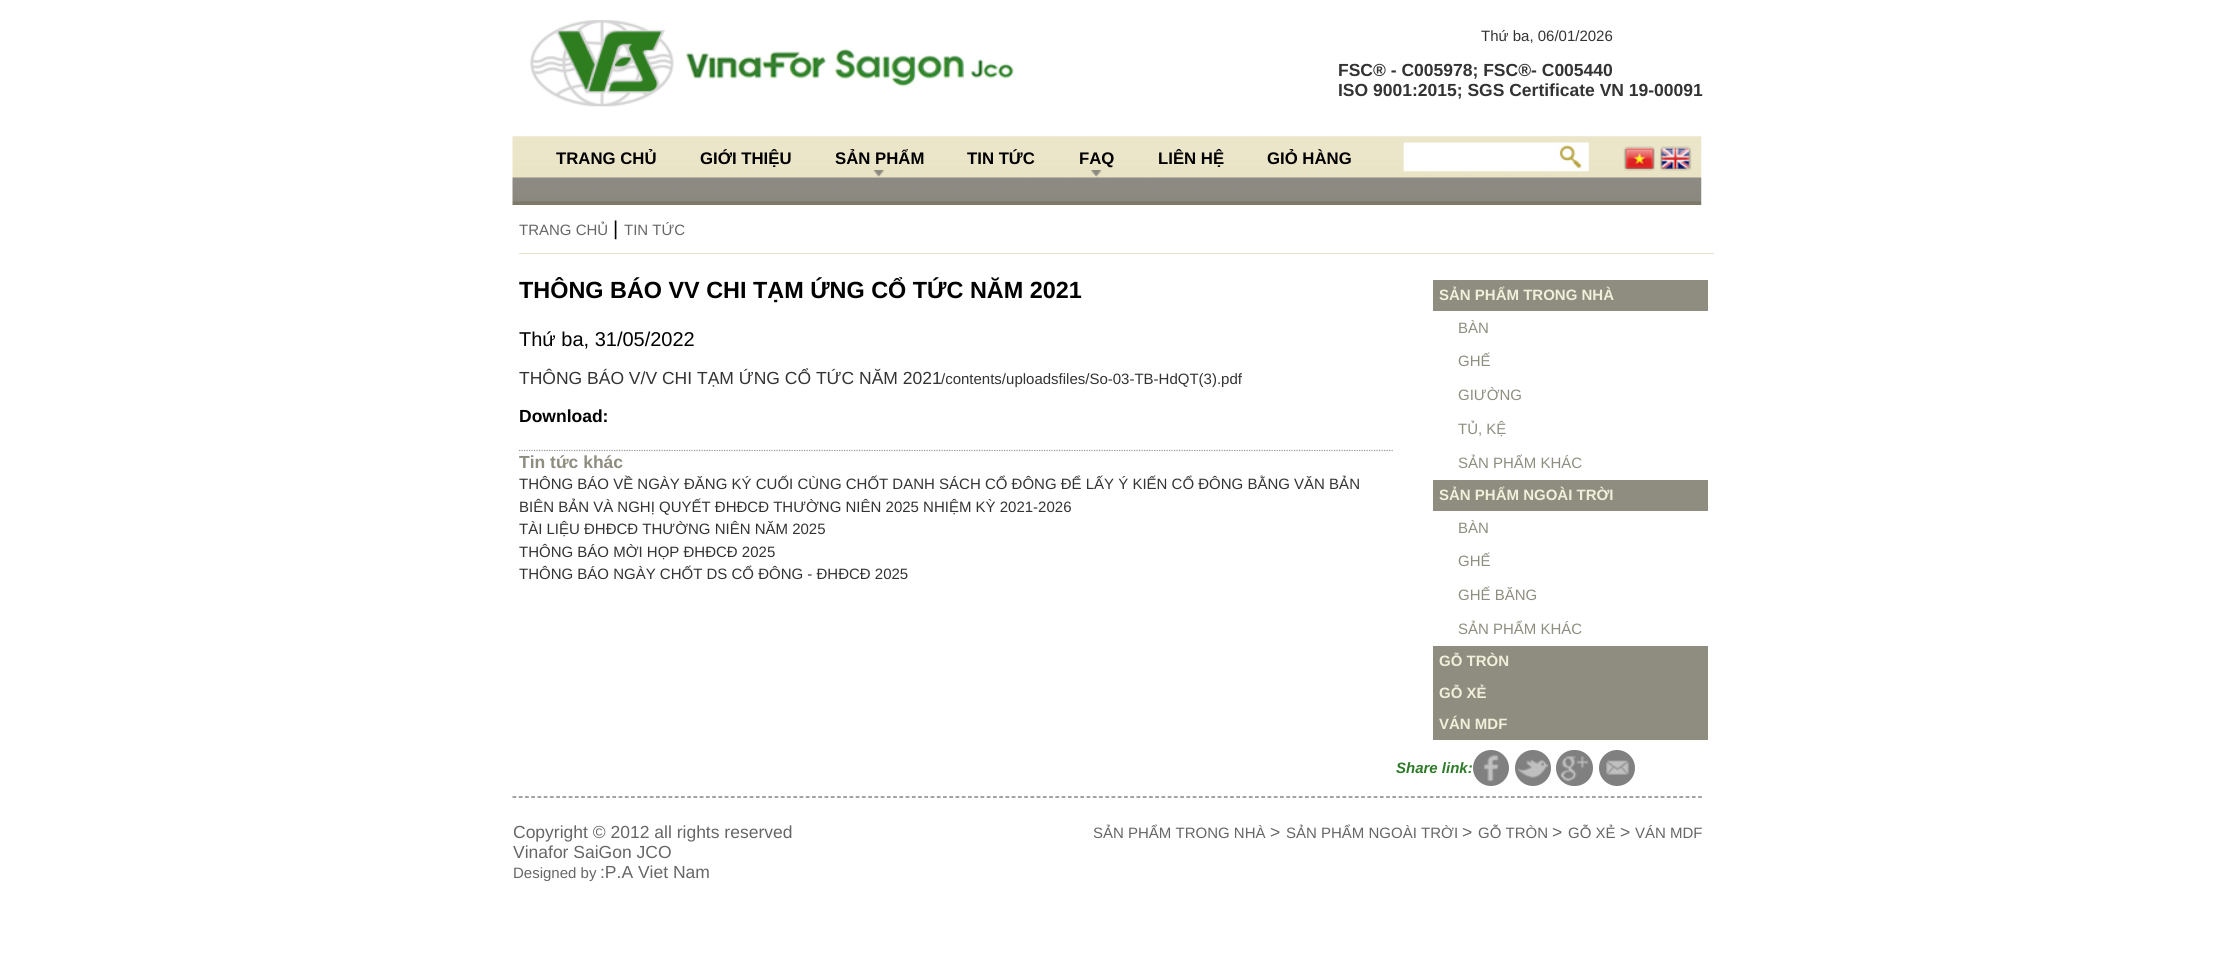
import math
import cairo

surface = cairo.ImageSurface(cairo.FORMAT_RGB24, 2215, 954)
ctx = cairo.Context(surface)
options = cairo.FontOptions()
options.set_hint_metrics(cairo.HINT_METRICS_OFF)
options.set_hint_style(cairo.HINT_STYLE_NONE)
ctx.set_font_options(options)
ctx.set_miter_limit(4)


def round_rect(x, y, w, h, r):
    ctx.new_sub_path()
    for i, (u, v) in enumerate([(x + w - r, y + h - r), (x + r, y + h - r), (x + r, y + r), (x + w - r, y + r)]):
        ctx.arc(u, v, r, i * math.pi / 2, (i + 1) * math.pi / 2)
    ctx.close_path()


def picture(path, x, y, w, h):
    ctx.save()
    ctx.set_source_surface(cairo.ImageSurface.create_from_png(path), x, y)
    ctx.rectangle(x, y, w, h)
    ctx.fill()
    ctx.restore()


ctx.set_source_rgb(1, 1, 1)
ctx.paint()
picture("img1.png", 530, 20, 484, 87)
ctx.select_font_face("Liberation Sans")
ctx.set_font_size(15)
ctx.set_source_rgb(0.2, 0.2, 0.2)
ctx.move_to(1481, 41)
ctx.show_text("Thứ ba, 06/01/2026")
ctx.select_font_face("Liberation Sans", cairo.FONT_SLANT_NORMAL, cairo.FONT_WEIGHT_BOLD)
ctx.set_font_size(17.5)
ctx.move_to(1338, 76)
ctx.show_text("FSC® - C005978; FSC®- C005440")
ctx.move_to(1338, 96)
ctx.show_text("ISO 9001:2015; SGS Certificate VN 19-00091")
picture("img2.png", 512, 136, 1190, 69)
ctx.set_font_size(16.75)
ctx.set_source_rgb(0, 0, 0)
ctx.move_to(556, 164)
ctx.show_text("TRANG CHỦ")
ctx.move_to(700, 164)
ctx.show_text("GIỚI THIỆU")
picture("img3.png", 873, 170, 11, 7)
ctx.move_to(835, 164)
ctx.show_text("SẢN PHẨM")
ctx.move_to(967, 164)
ctx.show_text("TIN TỨC")
picture("img4.png", 1091, 170, 11, 7)
ctx.move_to(1079, 164)
ctx.show_text("FAQ")
ctx.move_to(1158, 164)
ctx.show_text("LIÊN HỆ")
ctx.move_to(1267, 164)
ctx.show_text("GIỎ HÀNG")
picture("img5.png", 1403, 142, 186, 30)
picture("img6.png", 1623, 146, 32, 25)
picture("img7.png", 1660, 146, 32, 25)
ctx.set_source_rgb(0.914, 0.878, 0.8)
ctx.rectangle(519, 253, 1195, 1)
ctx.fill()
ctx.select_font_face("Liberation Sans")
ctx.set_font_size(15)
ctx.set_source_rgb(0.4, 0.4, 0.4)
ctx.move_to(519, 235)
ctx.show_text("TRANG CHỦ")
ctx.set_font_size(20)
ctx.set_source_rgb(0, 0, 0)
ctx.move_to(613, 235)
ctx.show_text("|")
ctx.set_font_size(15)
ctx.set_source_rgb(0.4, 0.4, 0.4)
ctx.move_to(624, 235)
ctx.show_text("TIN TỨC")
ctx.select_font_face("Liberation Sans", cairo.FONT_SLANT_NORMAL, cairo.FONT_WEIGHT_BOLD)
ctx.set_font_size(23.4)
ctx.set_source_rgb(0, 0, 0)
ctx.move_to(519, 298)
ctx.show_text("THÔNG BÁO VV CHI TẠM ỨNG CỔ TỨC NĂM 2021")
ctx.select_font_face("Liberation Sans")
ctx.set_font_size(20)
ctx.move_to(519, 346)
ctx.show_text("Thứ ba, 31/05/2022")
ctx.set_font_size(17.5)
ctx.set_source_rgb(0.2, 0.2, 0.2)
ctx.move_to(519, 384)
ctx.show_text("THÔNG BÁO V/V CHI TẠM ỨNG CỔ TỨC NĂM 2021")
ctx.set_font_size(15)
ctx.move_to(941, 384)
ctx.show_text("/contents/uploadsfiles/So-03-TB-HdQT(3).pdf")
ctx.select_font_face("Liberation Sans", cairo.FONT_SLANT_NORMAL, cairo.FONT_WEIGHT_BOLD)
ctx.set_font_size(17.5)
ctx.set_source_rgb(0, 0, 0)
ctx.move_to(519, 422)
ctx.show_text("Download:")
ctx.new_path()
ctx.move_to(519, 450.5)
ctx.line_to(1394, 450.5)
ctx.set_source_rgb(0.6, 0.6, 0.6)
ctx.set_line_width(1.2)
ctx.set_dash([1.25, 1.25])
ctx.stroke()
ctx.set_source_rgb(0.557, 0.553, 0.498)
ctx.move_to(519, 468)
ctx.show_text("Tin tức khác")
ctx.select_font_face("Liberation Sans")
ctx.set_font_size(15)
ctx.set_source_rgb(0.2, 0.2, 0.2)
ctx.move_to(519, 489)
ctx.show_text("THÔNG BÁO VỀ NGÀY ĐĂNG KÝ CUỐI CÙNG CHỐT DANH SÁCH CỔ ĐÔNG ĐỂ LẤY Ý KIẾN CỔ ĐÔNG BẰNG VĂN BẢN")
ctx.move_to(519, 512)
ctx.show_text("BIÊN BẢN VÀ NGHỊ QUYẾT ĐHĐCĐ THƯỜNG NIÊN 2025 NHIỆM KỲ 2021-2026")
ctx.move_to(519, 534)
ctx.show_text("TÀI LIỆU ĐHĐCĐ THƯỜNG NIÊN NĂM 2025")
ctx.move_to(519, 557)
ctx.show_text("THÔNG BÁO MỜI HỌP ĐHĐCĐ 2025")
ctx.move_to(519, 579)
ctx.show_text("THÔNG BÁO NGÀY CHỐT DS CỔ ĐÔNG - ĐHĐCĐ 2025")
ctx.set_source_rgb(0.557, 0.553, 0.498)
ctx.rectangle(1433, 280, 275, 31)
ctx.fill()
ctx.select_font_face("Liberation Sans", cairo.FONT_SLANT_NORMAL, cairo.FONT_WEIGHT_BOLD)
ctx.set_source_rgb(0.945, 0.933, 0.855)
ctx.move_to(1439, 300)
ctx.show_text("SẢN PHẨM TRONG NHÀ")
ctx.select_font_face("Liberation Sans")
ctx.set_source_rgb(0.557, 0.553, 0.498)
ctx.move_to(1458, 333)
ctx.show_text("BÀN")
ctx.move_to(1458, 366)
ctx.show_text("GHẾ")
ctx.move_to(1458, 400)
ctx.show_text("GIƯỜNG")
ctx.move_to(1458, 434)
ctx.show_text("TỦ, KỆ")
ctx.move_to(1458, 468)
ctx.show_text("SẢN PHẨM KHÁC")
ctx.rectangle(1433, 480, 275, 31)
ctx.fill()
ctx.select_font_face("Liberation Sans", cairo.FONT_SLANT_NORMAL, cairo.FONT_WEIGHT_BOLD)
ctx.set_source_rgb(0.945, 0.933, 0.855)
ctx.move_to(1439, 500)
ctx.show_text("SẢN PHẨM NGOÀI TRỜI")
ctx.select_font_face("Liberation Sans")
ctx.set_source_rgb(0.557, 0.553, 0.498)
ctx.move_to(1458, 533)
ctx.show_text("BÀN")
ctx.move_to(1458, 566)
ctx.show_text("GHẾ")
ctx.move_to(1458, 600)
ctx.show_text("GHẾ BĂNG")
ctx.move_to(1458, 634)
ctx.show_text("SẢN PHẨM KHÁC")
ctx.rectangle(1433, 646, 275, 94)
ctx.fill()
ctx.select_font_face("Liberation Sans", cairo.FONT_SLANT_NORMAL, cairo.FONT_WEIGHT_BOLD)
ctx.set_source_rgb(0.945, 0.933, 0.855)
ctx.move_to(1439, 666)
ctx.show_text("GỖ TRÒN")
ctx.move_to(1439, 698)
ctx.show_text("GỖ XẺ")
ctx.move_to(1439, 729)
ctx.show_text("VÁN MDF")
ctx.select_font_face("Liberation Sans", cairo.FONT_SLANT_ITALIC, cairo.FONT_WEIGHT_BOLD)
ctx.set_source_rgb(0.176, 0.478, 0.157)
ctx.move_to(1396, 773)
ctx.show_text("Share link:")
ctx.set_source_rgb(0.502, 0.502, 0.502)
ctx.new_path()
ctx.arc(1491, 768, 18, 0, 2 * math.pi)
ctx.fill()
ctx.arc(1533, 768, 18, 0, 2 * math.pi)
ctx.fill()
round_rect(1556, 750, 37, 36, 18)
ctx.fill()
ctx.arc(1617, 768, 18, 0, 2 * math.pi)
ctx.fill()
picture("img8.png", 1483, 755, 16, 27)
picture("img9.png", 1517, 759, 32, 19)
picture("img10.png", 1560, 756, 29, 26)
picture("img11.png", 1606, 760, 23, 15)
ctx.new_path()
ctx.move_to(512.5, 797)
ctx.line_to(1702.5, 797)
ctx.set_source_rgb(0.4, 0.4, 0.4)
ctx.set_dash([3.75, 2.49])
ctx.stroke()
ctx.select_font_face("Liberation Sans")
ctx.set_font_size(17.5)
ctx.move_to(513, 838)
ctx.show_text("Copyright © 2012 all rights reserved")
ctx.move_to(513, 858)
ctx.show_text("Vinafor SaiGon JCO")
ctx.set_font_size(15)
ctx.move_to(513, 878)
ctx.show_text("Designed by")
ctx.set_font_size(17.5)
ctx.move_to(600, 878)
ctx.show_text(":P.A Viet Nam")
ctx.set_font_size(15)
ctx.move_to(1093, 838)
ctx.show_text("SẢN PHẨM TRONG NHÀ")
ctx.set_font_size(17.5)
ctx.move_to(1270, 838)
ctx.show_text(">")
ctx.set_font_size(15)
ctx.move_to(1286, 838)
ctx.show_text("SẢN PHẨM NGOÀI TRỜI")
ctx.set_font_size(17.5)
ctx.move_to(1462, 838)
ctx.show_text(">")
ctx.set_font_size(15)
ctx.move_to(1478, 838)
ctx.show_text("GỖ TRÒN")
ctx.set_font_size(17.5)
ctx.move_to(1552, 838)
ctx.show_text(">")
ctx.set_font_size(15)
ctx.move_to(1568, 838)
ctx.show_text("GỖ XẺ")
ctx.set_font_size(17.5)
ctx.move_to(1620, 838)
ctx.show_text(">")
ctx.set_font_size(15)
ctx.move_to(1635, 838)
ctx.show_text("VÁN MDF")
surface.write_to_png("page.png")
